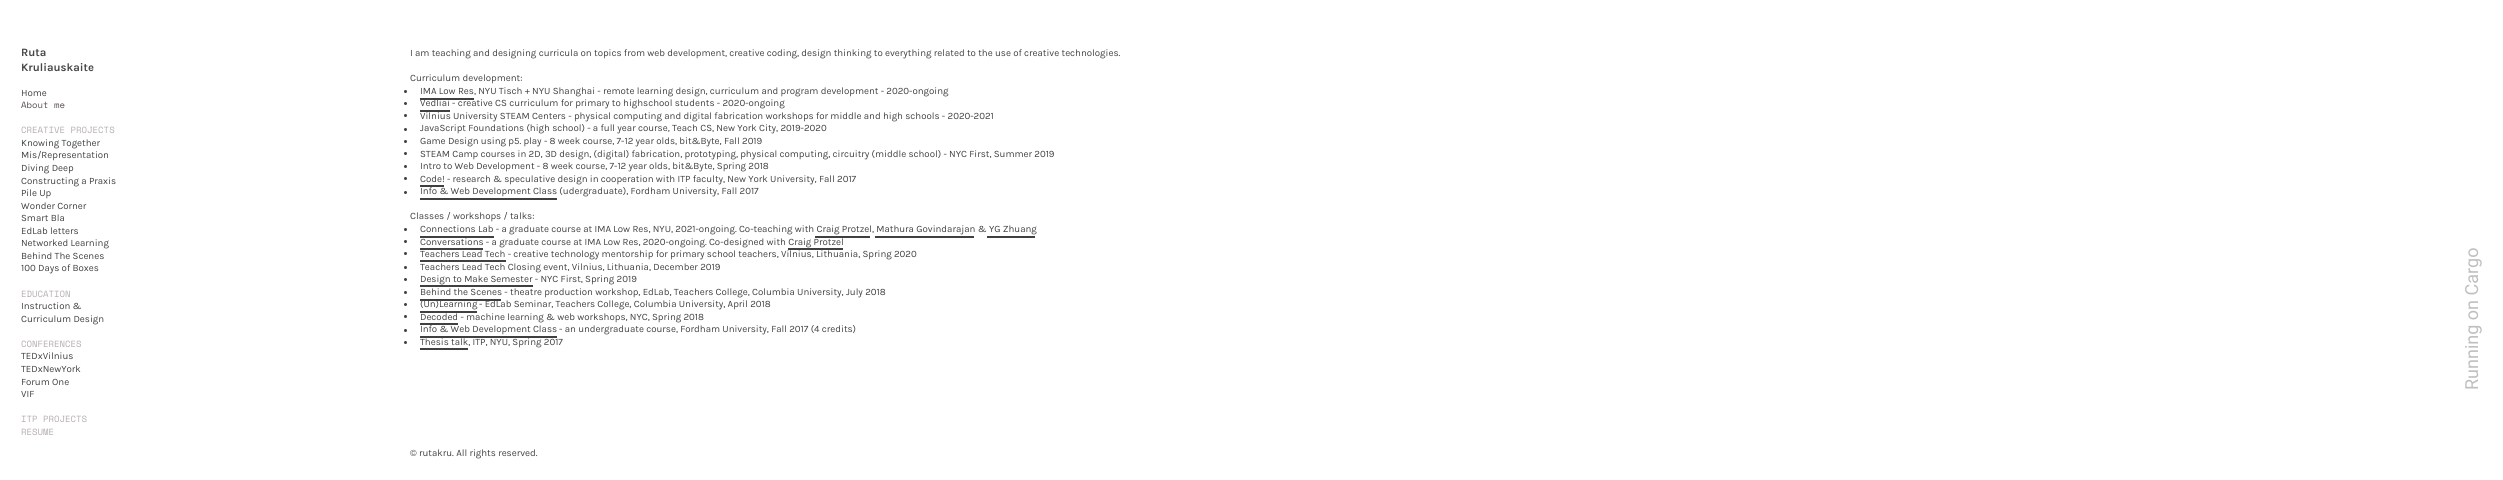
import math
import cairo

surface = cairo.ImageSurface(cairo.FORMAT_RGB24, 2503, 480)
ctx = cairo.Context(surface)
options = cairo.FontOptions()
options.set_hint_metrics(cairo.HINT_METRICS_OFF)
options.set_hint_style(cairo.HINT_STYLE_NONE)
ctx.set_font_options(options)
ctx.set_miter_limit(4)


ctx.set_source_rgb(1, 1, 1)
ctx.paint()
ctx.select_font_face("Karla", cairo.FONT_SLANT_NORMAL, cairo.FONT_WEIGHT_BOLD)
ctx.set_font_size(11.25)
ctx.set_source_rgb(0.275, 0.275, 0.275)
ctx.move_to(21, 56)
ctx.show_text("Ruta")
ctx.move_to(21, 71)
ctx.show_text("Kruliauskaite")
ctx.select_font_face("Karla")
ctx.set_font_size(9.68)
ctx.set_source_rgb(0.251, 0.251, 0.251)
ctx.move_to(21, 96)
ctx.show_text("Home")
ctx.select_font_face("Space Mono")
ctx.set_font_size(9)
ctx.set_source_rgb(0.353, 0.31, 0.31)
ctx.move_to(21, 108)
ctx.show_text("About me")
ctx.set_source_rgb(0.714, 0.682, 0.682)
ctx.move_to(21, 133)
ctx.show_text("CREATIVE PROJECTS")
ctx.select_font_face("Karla")
ctx.set_font_size(9.68)
ctx.set_source_rgb(0.251, 0.251, 0.251)
ctx.move_to(21, 146)
ctx.show_text("Knowing Together")
ctx.move_to(21, 158)
ctx.show_text("Mis/Representation")
ctx.move_to(21, 171)
ctx.show_text("Diving Deep")
ctx.move_to(21, 184)
ctx.show_text("Constructing a Praxis")
ctx.move_to(21, 196)
ctx.show_text("Pile Up")
ctx.move_to(21, 209)
ctx.show_text("Wonder Corner")
ctx.move_to(21, 221)
ctx.show_text("Smart Bla")
ctx.move_to(21, 234)
ctx.show_text("EdLab letters")
ctx.move_to(21, 246)
ctx.show_text("Networked Learning")
ctx.move_to(21, 259)
ctx.show_text("Behind The Scenes")
ctx.move_to(21, 271)
ctx.show_text("100 Days of Boxes")
ctx.select_font_face("Space Mono")
ctx.set_font_size(9)
ctx.set_source_rgb(0.714, 0.682, 0.682)
ctx.move_to(21, 297)
ctx.show_text("EDUCATION")
ctx.select_font_face("Karla")
ctx.set_font_size(9.68)
ctx.set_source_rgb(0.251, 0.251, 0.251)
ctx.move_to(21, 309)
ctx.show_text("Instruction &")
ctx.move_to(21, 322)
ctx.show_text("Curriculum Design")
ctx.select_font_face("Space Mono")
ctx.set_font_size(9)
ctx.set_source_rgb(0.714, 0.682, 0.682)
ctx.move_to(21, 347)
ctx.show_text("CONFERENCES")
ctx.select_font_face("Karla")
ctx.set_font_size(9.68)
ctx.set_source_rgb(0.251, 0.251, 0.251)
ctx.move_to(21, 359)
ctx.show_text("TEDxVilnius")
ctx.move_to(21, 372)
ctx.show_text("TEDxNewYork")
ctx.move_to(21, 385)
ctx.show_text("Forum One")
ctx.move_to(21, 397)
ctx.show_text("VIF")
ctx.select_font_face("Space Mono")
ctx.set_font_size(9)
ctx.set_source_rgb(0.714, 0.682, 0.682)
ctx.move_to(21, 422)
ctx.show_text("ITP PROJECTS")
ctx.move_to(21, 435)
ctx.show_text("RESUME")
ctx.select_font_face("Karla")
ctx.set_font_size(9.68)
ctx.set_source_rgb(0.251, 0.251, 0.251)
ctx.move_to(410, 56)
ctx.show_text("I am teaching and designing curricula on topics from web development, creative coding, design thinking to everything related to the use of creative technologies.")
ctx.move_to(410, 81)
ctx.show_text("Curriculum development:")
ctx.new_path()
ctx.arc(405.5, 91.5, 1.5, 0, 2 * math.pi)
ctx.fill()
ctx.move_to(420, 94)
ctx.show_text("IMA Low Res, NYU Tisch + NYU Shanghai - remote learning design, curriculum and program development - 2020-ongoing")
ctx.rectangle(420, 98, 54, 2)
ctx.fill()
ctx.arc(405.5, 103.5, 1.5, 0, 2 * math.pi)
ctx.fill()
ctx.move_to(420, 106)
ctx.show_text("Vedliai")
ctx.rectangle(420, 110, 30, 2)
ctx.fill()
ctx.move_to(452, 106)
ctx.show_text("- creative CS curriculum for primary to highschool students - 2020-ongoing")
ctx.new_path()
ctx.arc(405.5, 115.5, 1.5, 0, 2 * math.pi)
ctx.fill()
ctx.move_to(420, 119)
ctx.show_text("Vilnius University STEAM Centers - physical computing and digital fabrication workshops for middle and high schools - 2020-2021")
ctx.new_path()
ctx.arc(405.5, 129.5, 1.5, 0, 2 * math.pi)
ctx.fill()
ctx.move_to(420, 131)
ctx.show_text("JavaScript Foundations (high school) - a full year course, Teach CS, New York City, 2019-2020")
ctx.new_path()
ctx.arc(405.5, 141.5, 1.5, 0, 2 * math.pi)
ctx.fill()
ctx.move_to(420, 144)
ctx.show_text("Game Design using p5. play - 8 week course, 7-12 year olds, bit&Byte, Fall 2019")
ctx.new_path()
ctx.arc(405.5, 153.5, 1.5, 0, 2 * math.pi)
ctx.fill()
ctx.move_to(420, 157)
ctx.show_text("STEAM Camp courses in 2D, 3D design, (digital) fabrication, prototyping, physical computing, circuitry (middle school) - NYC First, Summer 2019")
ctx.new_path()
ctx.arc(405.5, 166.5, 1.5, 0, 2 * math.pi)
ctx.fill()
ctx.move_to(420, 169)
ctx.show_text("Intro to Web Development - 8 week course, 7-12 year olds, bit&Byte, Spring 2018")
ctx.new_path()
ctx.arc(405.5, 178.5, 1.5, 0, 2 * math.pi)
ctx.fill()
ctx.move_to(420, 182)
ctx.show_text("Code! - research & speculative design in cooperation with ITP faculty, New York University, Fall 2017")
ctx.rectangle(420, 185, 24, 2)
ctx.fill()
ctx.arc(405.5, 192.5, 1.5, 0, 2 * math.pi)
ctx.fill()
ctx.move_to(420, 194)
ctx.show_text("Info & Web Development Class (udergraduate), Fordham University, Fall 2017")
ctx.rectangle(420, 198, 137, 2)
ctx.fill()
ctx.move_to(410, 219)
ctx.show_text("Classes / workshops / talks:")
ctx.new_path()
ctx.arc(405.5, 229.5, 1.5, 0, 2 * math.pi)
ctx.fill()
ctx.move_to(420, 232)
ctx.show_text("Connections Lab - a graduate course at IMA Low Res, NYU, 2021-ongoing. Co-teaching with Craig Protzel, Mathura Govindarajan & YG Zhuang")
ctx.rectangle(420, 236, 74, 2)
ctx.fill()
ctx.rectangle(815, 236, 55, 2)
ctx.fill()
ctx.rectangle(875, 236, 99, 2)
ctx.fill()
ctx.rectangle(987, 236, 48, 2)
ctx.fill()
ctx.arc(405.5, 241.5, 1.5, 0, 2 * math.pi)
ctx.fill()
ctx.move_to(420, 245)
ctx.show_text("Conversations - a graduate course at IMA Low Res, 2020-ongoing. Co-designed with Craig Protzel")
ctx.rectangle(420, 248, 63, 2)
ctx.fill()
ctx.rectangle(788, 248, 55, 2)
ctx.fill()
ctx.arc(405.5, 253.5, 1.5, 0, 2 * math.pi)
ctx.fill()
ctx.move_to(420, 257)
ctx.show_text("Teachers Lead Tech - creative technology mentorship for primary school teachers, Vilnius, Lithuania, Spring 2020")
ctx.rectangle(420, 260, 86, 2)
ctx.fill()
ctx.arc(405.5, 267.5, 1.5, 0, 2 * math.pi)
ctx.fill()
ctx.move_to(420, 270)
ctx.show_text("Teachers Lead Tech Closing event, Vilnius, Lithuania, December 2019")
ctx.new_path()
ctx.arc(405.5, 279.5, 1.5, 0, 2 * math.pi)
ctx.fill()
ctx.move_to(420, 282)
ctx.show_text("Design to Make Semester - NYC First, Spring 2019")
ctx.rectangle(420, 285, 113, 2)
ctx.fill()
ctx.arc(405.5, 292.5, 1.5, 0, 2 * math.pi)
ctx.fill()
ctx.move_to(420, 295)
ctx.show_text("Behind the Scenes - theatre production workshop, EdLab, Teachers College, Columbia University, July 2018")
ctx.rectangle(420, 299, 81, 2)
ctx.fill()
ctx.arc(405.5, 304.5, 1.5, 0, 2 * math.pi)
ctx.fill()
ctx.move_to(420, 307)
ctx.show_text("(Un)Learning")
ctx.rectangle(420, 311, 57, 2)
ctx.fill()
ctx.move_to(479, 307)
ctx.show_text("- EdLab Seminar, Teachers College, Columbia University, April 2018")
ctx.new_path()
ctx.arc(405.5, 316.5, 1.5, 0, 2 * math.pi)
ctx.fill()
ctx.move_to(420, 320)
ctx.show_text("Decoded - machine learning & web workshops, NYC, Spring 2018")
ctx.rectangle(420, 323, 38, 2)
ctx.fill()
ctx.arc(405.5, 330.5, 1.5, 0, 2 * math.pi)
ctx.fill()
ctx.move_to(420, 332)
ctx.show_text("Info & Web Development Class")
ctx.rectangle(420, 336, 137, 2)
ctx.fill()
ctx.move_to(559, 332)
ctx.show_text("- an undergraduate course, Fordham University, Fall 2017 (4 credits)")
ctx.new_path()
ctx.arc(405.5, 342.5, 1.5, 0, 2 * math.pi)
ctx.fill()
ctx.move_to(420, 345)
ctx.show_text("Thesis talk, ITP, NYU, Spring 2017")
ctx.rectangle(420, 348, 48, 2)
ctx.fill()
ctx.select_font_face("Roboto")
ctx.set_font_size(18)
ctx.set_source_rgb(0.749, 0.749, 0.749)
ctx.save()
ctx.translate(2478, 390)
ctx.rotate(-90 * math.pi / 180)
ctx.move_to(0, 0)
ctx.show_text("Running on Cargo")
ctx.restore()
ctx.select_font_face("Karla")
ctx.set_font_size(9.68)
ctx.set_source_rgb(0.251, 0.251, 0.251)
ctx.move_to(410, 456)
ctx.show_text("© rutakru. All rights reserved.")
surface.write_to_png("page.png")
